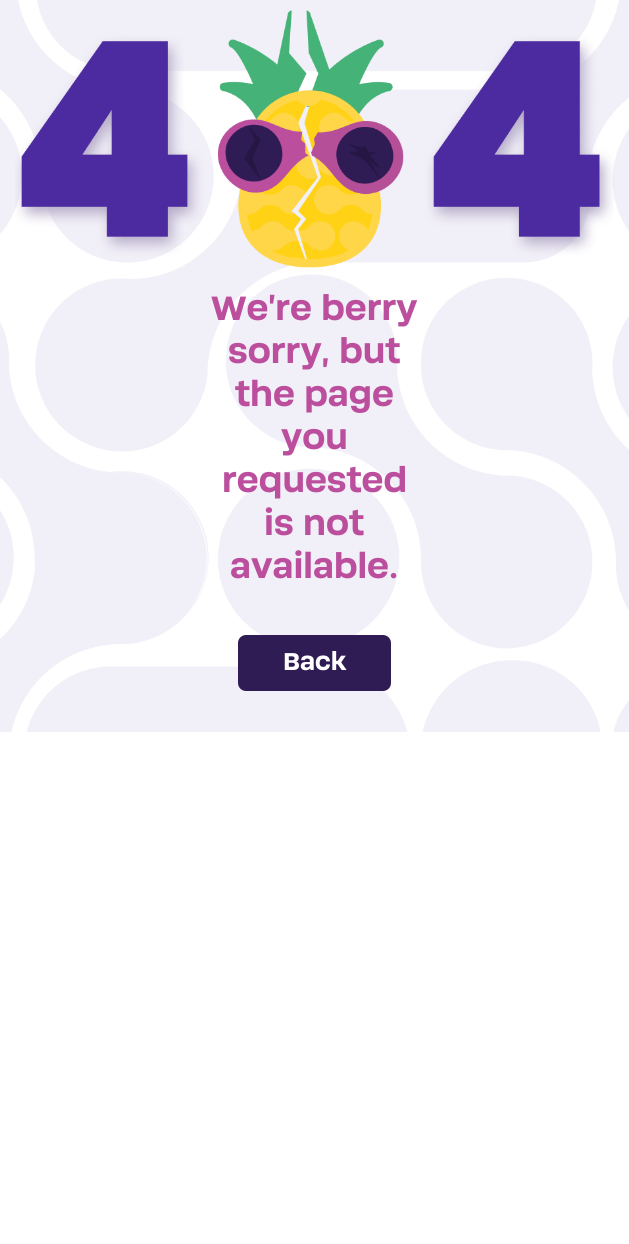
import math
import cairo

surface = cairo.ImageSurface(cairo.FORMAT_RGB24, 629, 1244)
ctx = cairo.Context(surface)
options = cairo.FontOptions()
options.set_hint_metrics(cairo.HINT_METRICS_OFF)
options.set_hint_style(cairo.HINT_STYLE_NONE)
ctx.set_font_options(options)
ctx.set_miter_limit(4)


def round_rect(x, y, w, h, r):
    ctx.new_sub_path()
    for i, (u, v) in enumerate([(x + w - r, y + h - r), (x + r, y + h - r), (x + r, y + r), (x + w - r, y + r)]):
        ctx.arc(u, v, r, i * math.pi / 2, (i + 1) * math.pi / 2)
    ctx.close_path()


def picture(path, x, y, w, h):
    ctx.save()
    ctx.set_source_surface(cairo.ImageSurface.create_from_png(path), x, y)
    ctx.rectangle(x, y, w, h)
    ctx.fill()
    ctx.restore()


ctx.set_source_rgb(1, 1, 1)
ctx.paint()
picture("img1.png", 0, 0, 629, 732)
picture("img2.png", 15, 10, 599, 258)
ctx.select_font_face("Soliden", cairo.FONT_SLANT_NORMAL, cairo.FONT_WEIGHT_BOLD)
ctx.set_font_size(36)
ctx.set_source_rgb(0.733, 0.31, 0.616)
ctx.move_to(211, 320)
ctx.show_text("We’re berry")
ctx.move_to(228, 363)
ctx.show_text("sorry, but")
ctx.move_to(235, 406)
ctx.show_text("the page")
ctx.move_to(281, 449)
ctx.show_text("you")
ctx.move_to(222, 492)
ctx.show_text("requested")
ctx.move_to(264, 535)
ctx.show_text("is not")
ctx.move_to(230, 578)
ctx.show_text("available.")
ctx.set_source_rgb(0.188, 0.11, 0.333)
round_rect(238, 635, 153, 56, 8)
ctx.fill()
ctx.set_font_size(26)
ctx.set_source_rgb(1, 1, 1)
ctx.move_to(283, 670)
ctx.show_text("Back")
surface.write_to_png("page.png")
